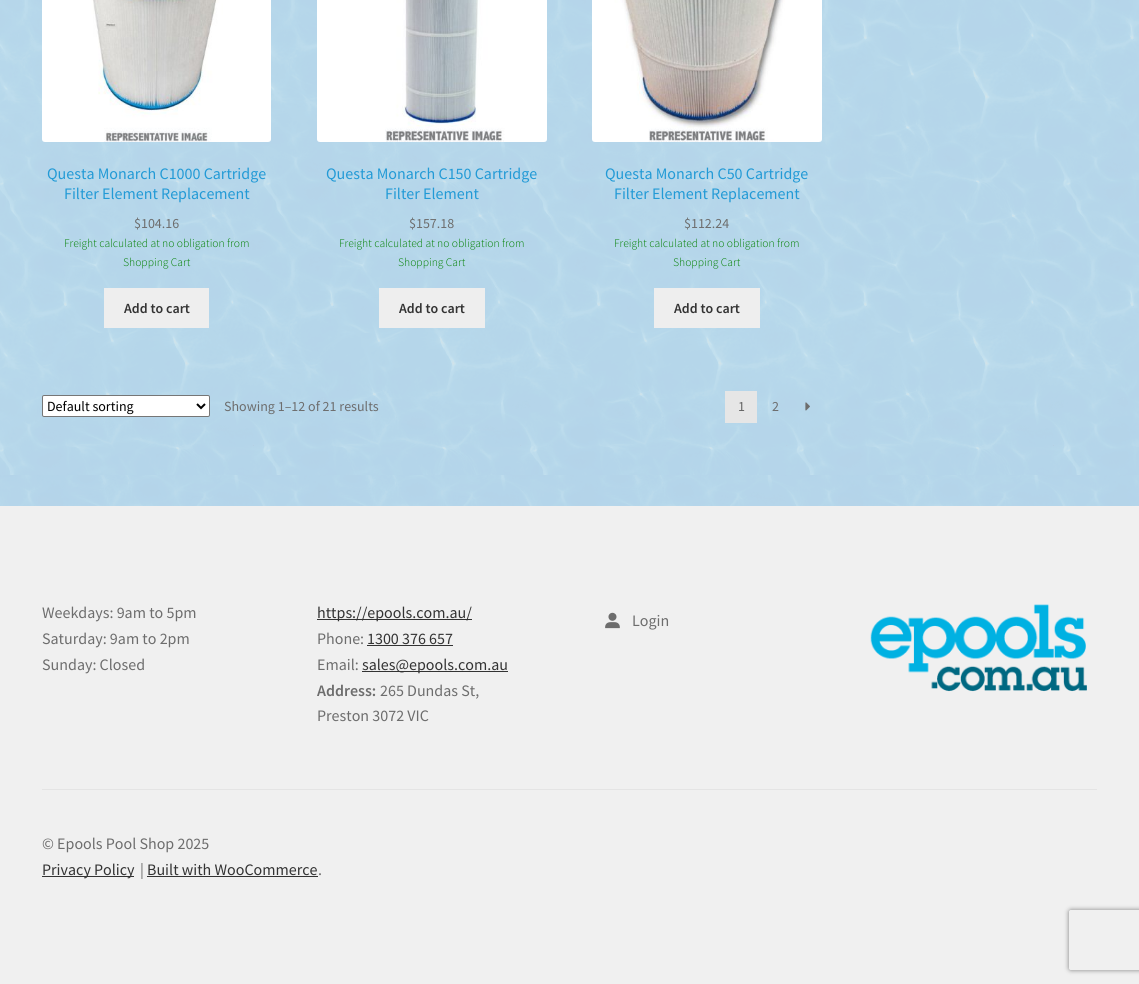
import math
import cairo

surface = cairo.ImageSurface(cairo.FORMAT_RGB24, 1139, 984)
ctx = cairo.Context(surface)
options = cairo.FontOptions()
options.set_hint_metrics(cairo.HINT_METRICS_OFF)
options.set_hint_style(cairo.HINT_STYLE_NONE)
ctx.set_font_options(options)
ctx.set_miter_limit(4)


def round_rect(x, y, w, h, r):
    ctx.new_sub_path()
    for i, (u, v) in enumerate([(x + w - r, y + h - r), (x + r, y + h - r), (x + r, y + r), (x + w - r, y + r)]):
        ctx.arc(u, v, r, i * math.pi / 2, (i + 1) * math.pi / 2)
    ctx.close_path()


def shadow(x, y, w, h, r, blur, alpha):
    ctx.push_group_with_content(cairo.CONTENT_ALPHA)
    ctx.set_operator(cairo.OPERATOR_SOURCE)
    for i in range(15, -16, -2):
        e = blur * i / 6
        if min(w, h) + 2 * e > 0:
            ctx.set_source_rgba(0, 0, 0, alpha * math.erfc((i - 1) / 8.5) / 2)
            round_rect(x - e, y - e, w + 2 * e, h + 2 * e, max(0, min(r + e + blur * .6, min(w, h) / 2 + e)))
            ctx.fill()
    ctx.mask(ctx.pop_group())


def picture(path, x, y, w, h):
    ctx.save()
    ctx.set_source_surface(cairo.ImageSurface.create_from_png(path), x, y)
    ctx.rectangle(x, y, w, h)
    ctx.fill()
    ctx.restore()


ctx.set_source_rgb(1, 1, 1)
ctx.paint()
picture("img1.png", 0, 0, 1139, 506)
ctx.set_source_rgba(1, 1, 1, 0.65)
ctx.rectangle(0, 0, 1139, 506)
ctx.fill()
picture("img2.png", 42, 0, 229, 142)
ctx.select_font_face("Source Sans Pro")
ctx.set_font_size(16)
ctx.set_source_rgb(0.133, 0.604, 0.839)
ctx.move_to(47, 179)
ctx.show_text("Questa Monarch C1000 Cartridge")
ctx.move_to(64, 199)
ctx.show_text("Filter Element Replacement")
ctx.set_font_size(14)
ctx.set_source_rgb(0.427, 0.427, 0.427)
ctx.move_to(134, 228)
ctx.show_text("$104.16")
ctx.select_font_face("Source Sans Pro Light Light")
ctx.set_font_size(11.6)
ctx.set_source_rgb(0, 0.502, 0)
ctx.move_to(64, 247)
ctx.show_text("Freight calculated at no obligation from")
ctx.move_to(123, 266)
ctx.show_text("Shopping Cart")
ctx.set_source_rgb(0.933, 0.933, 0.933)
ctx.rectangle(104, 288, 105, 40)
ctx.fill()
ctx.select_font_face("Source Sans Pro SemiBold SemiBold")
ctx.set_font_size(14)
ctx.set_source_rgb(0.2, 0.2, 0.2)
ctx.move_to(124, 313)
ctx.show_text("Add to cart")
picture("img3.png", 317, 0, 230, 142)
ctx.select_font_face("Source Sans Pro")
ctx.set_font_size(16)
ctx.set_source_rgb(0.133, 0.604, 0.839)
ctx.move_to(326, 179)
ctx.show_text("Questa Monarch C150 Cartridge")
ctx.move_to(385, 199)
ctx.show_text("Filter Element")
ctx.set_font_size(14)
ctx.set_source_rgb(0.427, 0.427, 0.427)
ctx.move_to(409, 228)
ctx.show_text("$157.18")
ctx.select_font_face("Source Sans Pro Light Light")
ctx.set_font_size(11.6)
ctx.set_source_rgb(0, 0.502, 0)
ctx.move_to(339, 247)
ctx.show_text("Freight calculated at no obligation from")
ctx.move_to(398, 266)
ctx.show_text("Shopping Cart")
ctx.set_source_rgb(0.933, 0.933, 0.933)
ctx.rectangle(379, 288, 106, 40)
ctx.fill()
ctx.select_font_face("Source Sans Pro SemiBold SemiBold")
ctx.set_font_size(14)
ctx.set_source_rgb(0.2, 0.2, 0.2)
ctx.move_to(399, 313)
ctx.show_text("Add to cart")
picture("img4.png", 592, 0, 230, 142)
ctx.select_font_face("Source Sans Pro")
ctx.set_font_size(16)
ctx.set_source_rgb(0.133, 0.604, 0.839)
ctx.move_to(605, 179)
ctx.show_text("Questa Monarch C50 Cartridge")
ctx.move_to(614, 199)
ctx.show_text("Filter Element Replacement")
ctx.set_font_size(14)
ctx.set_source_rgb(0.427, 0.427, 0.427)
ctx.move_to(684, 228)
ctx.show_text("$112.24")
ctx.select_font_face("Source Sans Pro Light Light")
ctx.set_font_size(11.6)
ctx.set_source_rgb(0, 0.502, 0)
ctx.move_to(614, 247)
ctx.show_text("Freight calculated at no obligation from")
ctx.move_to(673, 266)
ctx.show_text("Shopping Cart")
ctx.set_source_rgb(0.933, 0.933, 0.933)
ctx.rectangle(654, 288, 106, 40)
ctx.fill()
ctx.select_font_face("Source Sans Pro SemiBold SemiBold")
ctx.set_font_size(14)
ctx.set_source_rgb(0.2, 0.2, 0.2)
ctx.move_to(674, 313)
ctx.show_text("Add to cart")
ctx.set_source_rgb(1, 1, 1)
round_rect(42.5, 395.5, 167, 21, 1.5)
ctx.fill_preserve()
ctx.set_source_rgb(0.463, 0.463, 0.463)
ctx.set_line_width(1)
ctx.stroke()
ctx.new_path()
ctx.move_to(197, 404)
ctx.line_to(201, 408)
ctx.line_to(205, 404)
ctx.set_source_rgb(0, 0, 0)
ctx.set_line_width(2)
ctx.stroke()
ctx.select_font_face("Source Sans Pro")
ctx.move_to(47, 411)
ctx.show_text("Default sorting")
ctx.set_source_rgb(0.427, 0.427, 0.427)
ctx.move_to(224, 411)
ctx.show_text("Showing 1–12 of 21 results")
ctx.set_source_rgb(0.902, 0.902, 0.902)
ctx.rectangle(725, 391, 32, 32)
ctx.fill()
ctx.set_source_rgb(0.388, 0.388, 0.388)
ctx.move_to(738, 411)
ctx.show_text("1")
ctx.set_source_rgb(0.427, 0.427, 0.427)
ctx.move_to(772, 411)
ctx.show_text("2")
picture("img5.png", 805, 402, 5, 9)
ctx.set_source_rgb(0.941, 0.941, 0.941)
ctx.rectangle(0, 506, 1139, 478)
ctx.fill()
ctx.set_source_rgb(0.894, 0.894, 0.894)
ctx.rectangle(42, 789, 1055, 1)
ctx.fill()
ctx.set_font_size(16)
ctx.set_source_rgb(0.427, 0.427, 0.427)
ctx.move_to(42, 618)
ctx.show_text("Weekdays: 9am to 5pm")
ctx.move_to(42, 644)
ctx.show_text("Saturday: 9am to 2pm")
ctx.move_to(42, 670)
ctx.show_text("Sunday: Closed")
ctx.set_source_rgb(0.2, 0.2, 0.2)
ctx.rectangle(317, 619, 155, 1)
ctx.fill()
ctx.move_to(317, 618)
ctx.show_text("https://epools.com.au/")
ctx.set_source_rgb(0.427, 0.427, 0.427)
ctx.move_to(317, 644)
ctx.show_text("Phone:")
ctx.set_source_rgb(0.2, 0.2, 0.2)
ctx.move_to(367, 644)
ctx.show_text("1300 376 657")
ctx.rectangle(367, 645, 86, 1)
ctx.fill()
ctx.set_source_rgb(0.427, 0.427, 0.427)
ctx.move_to(317, 670)
ctx.show_text("Email:")
ctx.set_source_rgb(0.2, 0.2, 0.2)
ctx.rectangle(362, 671, 146, 1)
ctx.fill()
ctx.move_to(362, 670)
ctx.show_text("sales@epools.com.au")
ctx.select_font_face("Source Sans Pro SemiBold SemiBold")
ctx.set_source_rgb(0.427, 0.427, 0.427)
ctx.move_to(317, 696)
ctx.show_text("Address:")
ctx.select_font_face("Source Sans Pro")
ctx.move_to(380, 696)
ctx.show_text("265 Dundas St,")
ctx.move_to(317, 721)
ctx.show_text("Preston 3072 VIC")
picture("img6.png", 605, 612, 15, 17)
ctx.move_to(632, 626)
ctx.show_text("Login")
picture("img7.png", 870, 604, 217, 88)
ctx.move_to(42, 849)
ctx.show_text("© Epools Pool Shop 2025")
ctx.set_source_rgb(0.2, 0.2, 0.2)
ctx.rectangle(42, 876, 92, 1)
ctx.fill()
ctx.move_to(42, 875)
ctx.show_text("Privacy Policy")
ctx.set_source_rgb(0.427, 0.427, 0.427)
ctx.move_to(140, 875)
ctx.show_text("|")
ctx.set_source_rgb(0.2, 0.2, 0.2)
ctx.move_to(147, 875)
ctx.show_text("Built with WooCommerce")
ctx.rectangle(147, 876, 171, 1)
ctx.fill()
ctx.set_source_rgb(0.427, 0.427, 0.427)
ctx.move_to(318, 875)
ctx.show_text(".")
ctx.save()
ctx.set_fill_rule(cairo.FILL_RULE_EVEN_ODD)
ctx.new_path()
ctx.move_to(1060, 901)
ctx.line_to(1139, 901)
ctx.line_to(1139, 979)
ctx.line_to(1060, 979)
ctx.close_path()
ctx.move_to(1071, 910)
ctx.line_to(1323, 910)
ctx.curve_to(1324, 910, 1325, 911, 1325, 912)
ctx.line_to(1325, 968)
ctx.curve_to(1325, 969, 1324, 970, 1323, 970)
ctx.line_to(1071, 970)
ctx.curve_to(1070, 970, 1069, 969, 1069, 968)
ctx.line_to(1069, 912)
ctx.curve_to(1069, 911, 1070, 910, 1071, 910)
ctx.close_path()
ctx.clip()
ctx.set_source_rgb(0.502, 0.502, 0.502)
shadow(1069, 910, 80, 60, 2, 2.5, 1)
ctx.restore()
surface.write_to_png("page.png")
